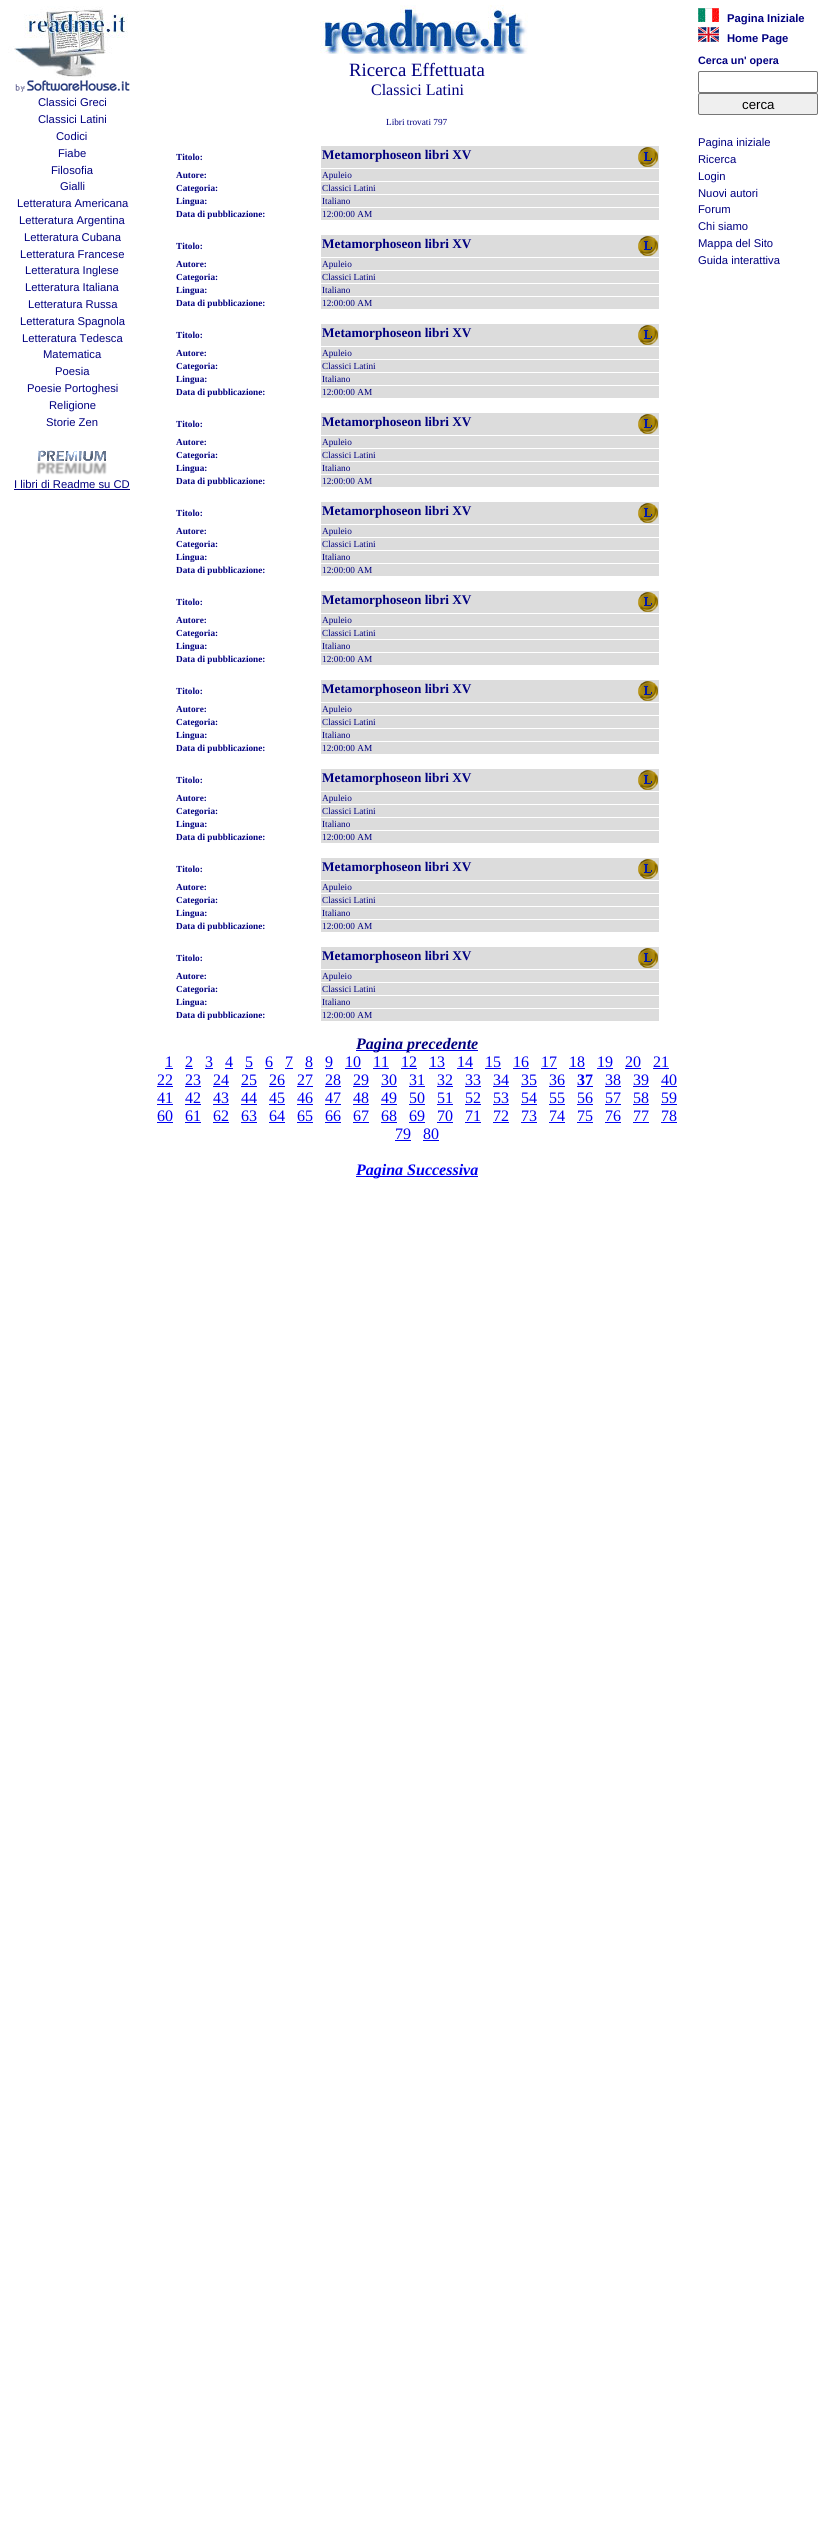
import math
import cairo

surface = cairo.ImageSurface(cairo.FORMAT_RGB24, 826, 2534)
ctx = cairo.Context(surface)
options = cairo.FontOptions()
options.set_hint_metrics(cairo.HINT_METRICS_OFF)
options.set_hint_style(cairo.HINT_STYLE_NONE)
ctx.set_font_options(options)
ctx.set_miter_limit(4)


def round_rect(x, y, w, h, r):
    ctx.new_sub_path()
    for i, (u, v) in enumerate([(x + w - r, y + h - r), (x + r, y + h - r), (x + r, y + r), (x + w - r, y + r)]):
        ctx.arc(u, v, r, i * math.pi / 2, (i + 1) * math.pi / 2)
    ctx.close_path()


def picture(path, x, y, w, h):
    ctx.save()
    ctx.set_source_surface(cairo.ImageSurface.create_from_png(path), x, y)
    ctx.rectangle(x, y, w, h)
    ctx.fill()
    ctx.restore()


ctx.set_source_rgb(1, 1, 1)
ctx.paint()
picture("img1.png", 8, 6, 120, 72)
picture("img2.png", 15, 80, 115, 12)
ctx.select_font_face("Liberation Sans")
ctx.set_font_size(11.25)
ctx.set_source_rgb(0, 0, 0.502)
ctx.move_to(38, 106)
ctx.show_text("Classici Greci")
ctx.move_to(38, 123)
ctx.show_text("Classici Latini")
ctx.move_to(56, 140)
ctx.show_text("Codici")
ctx.move_to(58, 157)
ctx.show_text("Fiabe")
ctx.move_to(51, 174)
ctx.show_text("Filosofia")
ctx.move_to(60, 190)
ctx.show_text("Gialli")
ctx.move_to(17, 207)
ctx.show_text("Letteratura Americana")
ctx.move_to(19, 224)
ctx.show_text("Letteratura Argentina")
ctx.move_to(24, 241)
ctx.show_text("Letteratura Cubana")
ctx.move_to(20, 258)
ctx.show_text("Letteratura Francese")
ctx.move_to(25, 274)
ctx.show_text("Letteratura Inglese")
ctx.move_to(25, 291)
ctx.show_text("Letteratura Italiana")
ctx.move_to(28, 308)
ctx.show_text("Letteratura Russa")
ctx.move_to(20, 325)
ctx.show_text("Letteratura Spagnola")
ctx.move_to(22, 342)
ctx.show_text("Letteratura Tedesca")
ctx.move_to(43, 358)
ctx.show_text("Matematica")
ctx.move_to(55, 375)
ctx.show_text("Poesia")
ctx.move_to(27, 392)
ctx.show_text("Poesie Portoghesi")
ctx.move_to(49, 409)
ctx.show_text("Religione")
ctx.move_to(46, 426)
ctx.show_text("Storie Zen")
picture("img3.png", 36, 450, 71, 25)
ctx.move_to(14, 488)
ctx.show_text("I libri di Readme su CD")
ctx.rectangle(14, 489, 116, 1)
ctx.fill()
picture("img4.png", 320, 5, 208, 49)
ctx.select_font_face("Liberation Serif")
ctx.set_font_size(18.75)
ctx.move_to(349, 76)
ctx.show_text("Ricerca Effettuata")
ctx.set_font_size(16)
ctx.move_to(371, 95)
ctx.show_text("Classici Latini")
ctx.set_font_size(9.25)
ctx.move_to(386, 125)
ctx.show_text("Libri trovati 797")
ctx.select_font_face("Liberation Serif", cairo.FONT_SLANT_NORMAL, cairo.FONT_WEIGHT_BOLD)
ctx.move_to(176, 160)
ctx.show_text("Titolo:")
ctx.set_source_rgb(0.863, 0.863, 0.863)
ctx.rectangle(321, 146, 338, 22)
ctx.fill()
ctx.set_font_size(13.25)
ctx.set_source_rgb(0, 0, 0.502)
ctx.move_to(322, 159)
ctx.show_text("Metamorphoseon libri XV")
picture("img5.png", 638, 147, 20, 20)
ctx.set_font_size(9.25)
ctx.move_to(176, 178)
ctx.show_text("Autore:")
ctx.set_source_rgb(0.863, 0.863, 0.863)
ctx.rectangle(321, 169, 338, 12)
ctx.fill()
ctx.select_font_face("Liberation Serif")
ctx.set_source_rgb(0, 0, 0.502)
ctx.move_to(322, 178)
ctx.show_text("Apuleio")
ctx.select_font_face("Liberation Serif", cairo.FONT_SLANT_NORMAL, cairo.FONT_WEIGHT_BOLD)
ctx.move_to(176, 191)
ctx.show_text("Categoria:")
ctx.set_source_rgb(0.863, 0.863, 0.863)
ctx.rectangle(321, 182, 338, 12)
ctx.fill()
ctx.select_font_face("Liberation Serif")
ctx.set_source_rgb(0, 0, 0.502)
ctx.move_to(322, 191)
ctx.show_text("Classici Latini")
ctx.select_font_face("Liberation Serif", cairo.FONT_SLANT_NORMAL, cairo.FONT_WEIGHT_BOLD)
ctx.move_to(176, 204)
ctx.show_text("Lingua:")
ctx.set_source_rgb(0.863, 0.863, 0.863)
ctx.rectangle(321, 195, 338, 12)
ctx.fill()
ctx.select_font_face("Liberation Serif")
ctx.set_source_rgb(0, 0, 0.502)
ctx.move_to(322, 204)
ctx.show_text("Italiano")
ctx.select_font_face("Liberation Serif", cairo.FONT_SLANT_NORMAL, cairo.FONT_WEIGHT_BOLD)
ctx.move_to(176, 217)
ctx.show_text("Data di pubblicazione:")
ctx.set_source_rgb(0.863, 0.863, 0.863)
ctx.rectangle(321, 208, 338, 12)
ctx.fill()
ctx.select_font_face("Liberation Serif")
ctx.set_source_rgb(0, 0, 0.502)
ctx.move_to(322, 217)
ctx.show_text("12:00:00 AM")
ctx.select_font_face("Liberation Serif", cairo.FONT_SLANT_NORMAL, cairo.FONT_WEIGHT_BOLD)
ctx.move_to(176, 249)
ctx.show_text("Titolo:")
ctx.set_source_rgb(0.863, 0.863, 0.863)
ctx.rectangle(321, 235, 338, 22)
ctx.fill()
ctx.set_font_size(13.25)
ctx.set_source_rgb(0, 0, 0.502)
ctx.move_to(322, 248)
ctx.show_text("Metamorphoseon libri XV")
picture("img5.png", 638, 236, 20, 20)
ctx.set_font_size(9.25)
ctx.move_to(176, 267)
ctx.show_text("Autore:")
ctx.set_source_rgb(0.863, 0.863, 0.863)
ctx.rectangle(321, 258, 338, 12)
ctx.fill()
ctx.select_font_face("Liberation Serif")
ctx.set_source_rgb(0, 0, 0.502)
ctx.move_to(322, 267)
ctx.show_text("Apuleio")
ctx.select_font_face("Liberation Serif", cairo.FONT_SLANT_NORMAL, cairo.FONT_WEIGHT_BOLD)
ctx.move_to(176, 280)
ctx.show_text("Categoria:")
ctx.set_source_rgb(0.863, 0.863, 0.863)
ctx.rectangle(321, 271, 338, 12)
ctx.fill()
ctx.select_font_face("Liberation Serif")
ctx.set_source_rgb(0, 0, 0.502)
ctx.move_to(322, 280)
ctx.show_text("Classici Latini")
ctx.select_font_face("Liberation Serif", cairo.FONT_SLANT_NORMAL, cairo.FONT_WEIGHT_BOLD)
ctx.move_to(176, 293)
ctx.show_text("Lingua:")
ctx.set_source_rgb(0.863, 0.863, 0.863)
ctx.rectangle(321, 284, 338, 12)
ctx.fill()
ctx.select_font_face("Liberation Serif")
ctx.set_source_rgb(0, 0, 0.502)
ctx.move_to(322, 293)
ctx.show_text("Italiano")
ctx.select_font_face("Liberation Serif", cairo.FONT_SLANT_NORMAL, cairo.FONT_WEIGHT_BOLD)
ctx.move_to(176, 306)
ctx.show_text("Data di pubblicazione:")
ctx.set_source_rgb(0.863, 0.863, 0.863)
ctx.rectangle(321, 297, 338, 12)
ctx.fill()
ctx.select_font_face("Liberation Serif")
ctx.set_source_rgb(0, 0, 0.502)
ctx.move_to(322, 306)
ctx.show_text("12:00:00 AM")
ctx.select_font_face("Liberation Serif", cairo.FONT_SLANT_NORMAL, cairo.FONT_WEIGHT_BOLD)
ctx.move_to(176, 338)
ctx.show_text("Titolo:")
ctx.set_source_rgb(0.863, 0.863, 0.863)
ctx.rectangle(321, 324, 338, 22)
ctx.fill()
ctx.set_font_size(13.25)
ctx.set_source_rgb(0, 0, 0.502)
ctx.move_to(322, 337)
ctx.show_text("Metamorphoseon libri XV")
picture("img5.png", 638, 325, 20, 20)
ctx.set_font_size(9.25)
ctx.move_to(176, 356)
ctx.show_text("Autore:")
ctx.set_source_rgb(0.863, 0.863, 0.863)
ctx.rectangle(321, 347, 338, 12)
ctx.fill()
ctx.select_font_face("Liberation Serif")
ctx.set_source_rgb(0, 0, 0.502)
ctx.move_to(322, 356)
ctx.show_text("Apuleio")
ctx.select_font_face("Liberation Serif", cairo.FONT_SLANT_NORMAL, cairo.FONT_WEIGHT_BOLD)
ctx.move_to(176, 369)
ctx.show_text("Categoria:")
ctx.set_source_rgb(0.863, 0.863, 0.863)
ctx.rectangle(321, 360, 338, 12)
ctx.fill()
ctx.select_font_face("Liberation Serif")
ctx.set_source_rgb(0, 0, 0.502)
ctx.move_to(322, 369)
ctx.show_text("Classici Latini")
ctx.select_font_face("Liberation Serif", cairo.FONT_SLANT_NORMAL, cairo.FONT_WEIGHT_BOLD)
ctx.move_to(176, 382)
ctx.show_text("Lingua:")
ctx.set_source_rgb(0.863, 0.863, 0.863)
ctx.rectangle(321, 373, 338, 12)
ctx.fill()
ctx.select_font_face("Liberation Serif")
ctx.set_source_rgb(0, 0, 0.502)
ctx.move_to(322, 382)
ctx.show_text("Italiano")
ctx.select_font_face("Liberation Serif", cairo.FONT_SLANT_NORMAL, cairo.FONT_WEIGHT_BOLD)
ctx.move_to(176, 395)
ctx.show_text("Data di pubblicazione:")
ctx.set_source_rgb(0.863, 0.863, 0.863)
ctx.rectangle(321, 386, 338, 12)
ctx.fill()
ctx.select_font_face("Liberation Serif")
ctx.set_source_rgb(0, 0, 0.502)
ctx.move_to(322, 395)
ctx.show_text("12:00:00 AM")
ctx.select_font_face("Liberation Serif", cairo.FONT_SLANT_NORMAL, cairo.FONT_WEIGHT_BOLD)
ctx.move_to(176, 427)
ctx.show_text("Titolo:")
ctx.set_source_rgb(0.863, 0.863, 0.863)
ctx.rectangle(321, 413, 338, 22)
ctx.fill()
ctx.set_font_size(13.25)
ctx.set_source_rgb(0, 0, 0.502)
ctx.move_to(322, 426)
ctx.show_text("Metamorphoseon libri XV")
picture("img5.png", 638, 414, 20, 20)
ctx.set_font_size(9.25)
ctx.move_to(176, 445)
ctx.show_text("Autore:")
ctx.set_source_rgb(0.863, 0.863, 0.863)
ctx.rectangle(321, 436, 338, 12)
ctx.fill()
ctx.select_font_face("Liberation Serif")
ctx.set_source_rgb(0, 0, 0.502)
ctx.move_to(322, 445)
ctx.show_text("Apuleio")
ctx.select_font_face("Liberation Serif", cairo.FONT_SLANT_NORMAL, cairo.FONT_WEIGHT_BOLD)
ctx.move_to(176, 458)
ctx.show_text("Categoria:")
ctx.set_source_rgb(0.863, 0.863, 0.863)
ctx.rectangle(321, 449, 338, 12)
ctx.fill()
ctx.select_font_face("Liberation Serif")
ctx.set_source_rgb(0, 0, 0.502)
ctx.move_to(322, 458)
ctx.show_text("Classici Latini")
ctx.select_font_face("Liberation Serif", cairo.FONT_SLANT_NORMAL, cairo.FONT_WEIGHT_BOLD)
ctx.move_to(176, 471)
ctx.show_text("Lingua:")
ctx.set_source_rgb(0.863, 0.863, 0.863)
ctx.rectangle(321, 462, 338, 12)
ctx.fill()
ctx.select_font_face("Liberation Serif")
ctx.set_source_rgb(0, 0, 0.502)
ctx.move_to(322, 471)
ctx.show_text("Italiano")
ctx.select_font_face("Liberation Serif", cairo.FONT_SLANT_NORMAL, cairo.FONT_WEIGHT_BOLD)
ctx.move_to(176, 484)
ctx.show_text("Data di pubblicazione:")
ctx.set_source_rgb(0.863, 0.863, 0.863)
ctx.rectangle(321, 475, 338, 12)
ctx.fill()
ctx.select_font_face("Liberation Serif")
ctx.set_source_rgb(0, 0, 0.502)
ctx.move_to(322, 484)
ctx.show_text("12:00:00 AM")
ctx.select_font_face("Liberation Serif", cairo.FONT_SLANT_NORMAL, cairo.FONT_WEIGHT_BOLD)
ctx.move_to(176, 516)
ctx.show_text("Titolo:")
ctx.set_source_rgb(0.863, 0.863, 0.863)
ctx.rectangle(321, 502, 338, 22)
ctx.fill()
ctx.set_font_size(13.25)
ctx.set_source_rgb(0, 0, 0.502)
ctx.move_to(322, 515)
ctx.show_text("Metamorphoseon libri XV")
picture("img5.png", 638, 503, 20, 20)
ctx.set_font_size(9.25)
ctx.move_to(176, 534)
ctx.show_text("Autore:")
ctx.set_source_rgb(0.863, 0.863, 0.863)
ctx.rectangle(321, 525, 338, 12)
ctx.fill()
ctx.select_font_face("Liberation Serif")
ctx.set_source_rgb(0, 0, 0.502)
ctx.move_to(322, 534)
ctx.show_text("Apuleio")
ctx.select_font_face("Liberation Serif", cairo.FONT_SLANT_NORMAL, cairo.FONT_WEIGHT_BOLD)
ctx.move_to(176, 547)
ctx.show_text("Categoria:")
ctx.set_source_rgb(0.863, 0.863, 0.863)
ctx.rectangle(321, 538, 338, 12)
ctx.fill()
ctx.select_font_face("Liberation Serif")
ctx.set_source_rgb(0, 0, 0.502)
ctx.move_to(322, 547)
ctx.show_text("Classici Latini")
ctx.select_font_face("Liberation Serif", cairo.FONT_SLANT_NORMAL, cairo.FONT_WEIGHT_BOLD)
ctx.move_to(176, 560)
ctx.show_text("Lingua:")
ctx.set_source_rgb(0.863, 0.863, 0.863)
ctx.rectangle(321, 551, 338, 12)
ctx.fill()
ctx.select_font_face("Liberation Serif")
ctx.set_source_rgb(0, 0, 0.502)
ctx.move_to(322, 560)
ctx.show_text("Italiano")
ctx.select_font_face("Liberation Serif", cairo.FONT_SLANT_NORMAL, cairo.FONT_WEIGHT_BOLD)
ctx.move_to(176, 573)
ctx.show_text("Data di pubblicazione:")
ctx.set_source_rgb(0.863, 0.863, 0.863)
ctx.rectangle(321, 564, 338, 12)
ctx.fill()
ctx.select_font_face("Liberation Serif")
ctx.set_source_rgb(0, 0, 0.502)
ctx.move_to(322, 573)
ctx.show_text("12:00:00 AM")
ctx.select_font_face("Liberation Serif", cairo.FONT_SLANT_NORMAL, cairo.FONT_WEIGHT_BOLD)
ctx.move_to(176, 605)
ctx.show_text("Titolo:")
ctx.set_source_rgb(0.863, 0.863, 0.863)
ctx.rectangle(321, 591, 338, 22)
ctx.fill()
ctx.set_font_size(13.25)
ctx.set_source_rgb(0, 0, 0.502)
ctx.move_to(322, 604)
ctx.show_text("Metamorphoseon libri XV")
picture("img5.png", 638, 592, 20, 20)
ctx.set_font_size(9.25)
ctx.move_to(176, 623)
ctx.show_text("Autore:")
ctx.set_source_rgb(0.863, 0.863, 0.863)
ctx.rectangle(321, 614, 338, 12)
ctx.fill()
ctx.select_font_face("Liberation Serif")
ctx.set_source_rgb(0, 0, 0.502)
ctx.move_to(322, 623)
ctx.show_text("Apuleio")
ctx.select_font_face("Liberation Serif", cairo.FONT_SLANT_NORMAL, cairo.FONT_WEIGHT_BOLD)
ctx.move_to(176, 636)
ctx.show_text("Categoria:")
ctx.set_source_rgb(0.863, 0.863, 0.863)
ctx.rectangle(321, 627, 338, 12)
ctx.fill()
ctx.select_font_face("Liberation Serif")
ctx.set_source_rgb(0, 0, 0.502)
ctx.move_to(322, 636)
ctx.show_text("Classici Latini")
ctx.select_font_face("Liberation Serif", cairo.FONT_SLANT_NORMAL, cairo.FONT_WEIGHT_BOLD)
ctx.move_to(176, 649)
ctx.show_text("Lingua:")
ctx.set_source_rgb(0.863, 0.863, 0.863)
ctx.rectangle(321, 640, 338, 12)
ctx.fill()
ctx.select_font_face("Liberation Serif")
ctx.set_source_rgb(0, 0, 0.502)
ctx.move_to(322, 649)
ctx.show_text("Italiano")
ctx.select_font_face("Liberation Serif", cairo.FONT_SLANT_NORMAL, cairo.FONT_WEIGHT_BOLD)
ctx.move_to(176, 662)
ctx.show_text("Data di pubblicazione:")
ctx.set_source_rgb(0.863, 0.863, 0.863)
ctx.rectangle(321, 653, 338, 12)
ctx.fill()
ctx.select_font_face("Liberation Serif")
ctx.set_source_rgb(0, 0, 0.502)
ctx.move_to(322, 662)
ctx.show_text("12:00:00 AM")
ctx.select_font_face("Liberation Serif", cairo.FONT_SLANT_NORMAL, cairo.FONT_WEIGHT_BOLD)
ctx.move_to(176, 694)
ctx.show_text("Titolo:")
ctx.set_source_rgb(0.863, 0.863, 0.863)
ctx.rectangle(321, 680, 338, 22)
ctx.fill()
ctx.set_font_size(13.25)
ctx.set_source_rgb(0, 0, 0.502)
ctx.move_to(322, 693)
ctx.show_text("Metamorphoseon libri XV")
picture("img5.png", 638, 681, 20, 20)
ctx.set_font_size(9.25)
ctx.move_to(176, 712)
ctx.show_text("Autore:")
ctx.set_source_rgb(0.863, 0.863, 0.863)
ctx.rectangle(321, 703, 338, 12)
ctx.fill()
ctx.select_font_face("Liberation Serif")
ctx.set_source_rgb(0, 0, 0.502)
ctx.move_to(322, 712)
ctx.show_text("Apuleio")
ctx.select_font_face("Liberation Serif", cairo.FONT_SLANT_NORMAL, cairo.FONT_WEIGHT_BOLD)
ctx.move_to(176, 725)
ctx.show_text("Categoria:")
ctx.set_source_rgb(0.863, 0.863, 0.863)
ctx.rectangle(321, 716, 338, 12)
ctx.fill()
ctx.select_font_face("Liberation Serif")
ctx.set_source_rgb(0, 0, 0.502)
ctx.move_to(322, 725)
ctx.show_text("Classici Latini")
ctx.select_font_face("Liberation Serif", cairo.FONT_SLANT_NORMAL, cairo.FONT_WEIGHT_BOLD)
ctx.move_to(176, 738)
ctx.show_text("Lingua:")
ctx.set_source_rgb(0.863, 0.863, 0.863)
ctx.rectangle(321, 729, 338, 12)
ctx.fill()
ctx.select_font_face("Liberation Serif")
ctx.set_source_rgb(0, 0, 0.502)
ctx.move_to(322, 738)
ctx.show_text("Italiano")
ctx.select_font_face("Liberation Serif", cairo.FONT_SLANT_NORMAL, cairo.FONT_WEIGHT_BOLD)
ctx.move_to(176, 751)
ctx.show_text("Data di pubblicazione:")
ctx.set_source_rgb(0.863, 0.863, 0.863)
ctx.rectangle(321, 742, 338, 12)
ctx.fill()
ctx.select_font_face("Liberation Serif")
ctx.set_source_rgb(0, 0, 0.502)
ctx.move_to(322, 751)
ctx.show_text("12:00:00 AM")
ctx.select_font_face("Liberation Serif", cairo.FONT_SLANT_NORMAL, cairo.FONT_WEIGHT_BOLD)
ctx.move_to(176, 783)
ctx.show_text("Titolo:")
ctx.set_source_rgb(0.863, 0.863, 0.863)
ctx.rectangle(321, 769, 338, 22)
ctx.fill()
ctx.set_font_size(13.25)
ctx.set_source_rgb(0, 0, 0.502)
ctx.move_to(322, 782)
ctx.show_text("Metamorphoseon libri XV")
picture("img5.png", 638, 770, 20, 20)
ctx.set_font_size(9.25)
ctx.move_to(176, 801)
ctx.show_text("Autore:")
ctx.set_source_rgb(0.863, 0.863, 0.863)
ctx.rectangle(321, 792, 338, 12)
ctx.fill()
ctx.select_font_face("Liberation Serif")
ctx.set_source_rgb(0, 0, 0.502)
ctx.move_to(322, 801)
ctx.show_text("Apuleio")
ctx.select_font_face("Liberation Serif", cairo.FONT_SLANT_NORMAL, cairo.FONT_WEIGHT_BOLD)
ctx.move_to(176, 814)
ctx.show_text("Categoria:")
ctx.set_source_rgb(0.863, 0.863, 0.863)
ctx.rectangle(321, 805, 338, 12)
ctx.fill()
ctx.select_font_face("Liberation Serif")
ctx.set_source_rgb(0, 0, 0.502)
ctx.move_to(322, 814)
ctx.show_text("Classici Latini")
ctx.select_font_face("Liberation Serif", cairo.FONT_SLANT_NORMAL, cairo.FONT_WEIGHT_BOLD)
ctx.move_to(176, 827)
ctx.show_text("Lingua:")
ctx.set_source_rgb(0.863, 0.863, 0.863)
ctx.rectangle(321, 818, 338, 12)
ctx.fill()
ctx.select_font_face("Liberation Serif")
ctx.set_source_rgb(0, 0, 0.502)
ctx.move_to(322, 827)
ctx.show_text("Italiano")
ctx.select_font_face("Liberation Serif", cairo.FONT_SLANT_NORMAL, cairo.FONT_WEIGHT_BOLD)
ctx.move_to(176, 840)
ctx.show_text("Data di pubblicazione:")
ctx.set_source_rgb(0.863, 0.863, 0.863)
ctx.rectangle(321, 831, 338, 12)
ctx.fill()
ctx.select_font_face("Liberation Serif")
ctx.set_source_rgb(0, 0, 0.502)
ctx.move_to(322, 840)
ctx.show_text("12:00:00 AM")
ctx.select_font_face("Liberation Serif", cairo.FONT_SLANT_NORMAL, cairo.FONT_WEIGHT_BOLD)
ctx.move_to(176, 872)
ctx.show_text("Titolo:")
ctx.set_source_rgb(0.863, 0.863, 0.863)
ctx.rectangle(321, 858, 338, 22)
ctx.fill()
ctx.set_font_size(13.25)
ctx.set_source_rgb(0, 0, 0.502)
ctx.move_to(322, 871)
ctx.show_text("Metamorphoseon libri XV")
picture("img5.png", 638, 859, 20, 20)
ctx.set_font_size(9.25)
ctx.move_to(176, 890)
ctx.show_text("Autore:")
ctx.set_source_rgb(0.863, 0.863, 0.863)
ctx.rectangle(321, 881, 338, 12)
ctx.fill()
ctx.select_font_face("Liberation Serif")
ctx.set_source_rgb(0, 0, 0.502)
ctx.move_to(322, 890)
ctx.show_text("Apuleio")
ctx.select_font_face("Liberation Serif", cairo.FONT_SLANT_NORMAL, cairo.FONT_WEIGHT_BOLD)
ctx.move_to(176, 903)
ctx.show_text("Categoria:")
ctx.set_source_rgb(0.863, 0.863, 0.863)
ctx.rectangle(321, 894, 338, 12)
ctx.fill()
ctx.select_font_face("Liberation Serif")
ctx.set_source_rgb(0, 0, 0.502)
ctx.move_to(322, 903)
ctx.show_text("Classici Latini")
ctx.select_font_face("Liberation Serif", cairo.FONT_SLANT_NORMAL, cairo.FONT_WEIGHT_BOLD)
ctx.move_to(176, 916)
ctx.show_text("Lingua:")
ctx.set_source_rgb(0.863, 0.863, 0.863)
ctx.rectangle(321, 907, 338, 12)
ctx.fill()
ctx.select_font_face("Liberation Serif")
ctx.set_source_rgb(0, 0, 0.502)
ctx.move_to(322, 916)
ctx.show_text("Italiano")
ctx.select_font_face("Liberation Serif", cairo.FONT_SLANT_NORMAL, cairo.FONT_WEIGHT_BOLD)
ctx.move_to(176, 929)
ctx.show_text("Data di pubblicazione:")
ctx.set_source_rgb(0.863, 0.863, 0.863)
ctx.rectangle(321, 920, 338, 12)
ctx.fill()
ctx.select_font_face("Liberation Serif")
ctx.set_source_rgb(0, 0, 0.502)
ctx.move_to(322, 929)
ctx.show_text("12:00:00 AM")
ctx.select_font_face("Liberation Serif", cairo.FONT_SLANT_NORMAL, cairo.FONT_WEIGHT_BOLD)
ctx.move_to(176, 961)
ctx.show_text("Titolo:")
ctx.set_source_rgb(0.863, 0.863, 0.863)
ctx.rectangle(321, 947, 338, 22)
ctx.fill()
ctx.set_font_size(13.25)
ctx.set_source_rgb(0, 0, 0.502)
ctx.move_to(322, 960)
ctx.show_text("Metamorphoseon libri XV")
picture("img5.png", 638, 948, 20, 20)
ctx.set_font_size(9.25)
ctx.move_to(176, 979)
ctx.show_text("Autore:")
ctx.set_source_rgb(0.863, 0.863, 0.863)
ctx.rectangle(321, 970, 338, 12)
ctx.fill()
ctx.select_font_face("Liberation Serif")
ctx.set_source_rgb(0, 0, 0.502)
ctx.move_to(322, 979)
ctx.show_text("Apuleio")
ctx.select_font_face("Liberation Serif", cairo.FONT_SLANT_NORMAL, cairo.FONT_WEIGHT_BOLD)
ctx.move_to(176, 992)
ctx.show_text("Categoria:")
ctx.set_source_rgb(0.863, 0.863, 0.863)
ctx.rectangle(321, 983, 338, 12)
ctx.fill()
ctx.select_font_face("Liberation Serif")
ctx.set_source_rgb(0, 0, 0.502)
ctx.move_to(322, 992)
ctx.show_text("Classici Latini")
ctx.select_font_face("Liberation Serif", cairo.FONT_SLANT_NORMAL, cairo.FONT_WEIGHT_BOLD)
ctx.move_to(176, 1005)
ctx.show_text("Lingua:")
ctx.set_source_rgb(0.863, 0.863, 0.863)
ctx.rectangle(321, 996, 338, 12)
ctx.fill()
ctx.select_font_face("Liberation Serif")
ctx.set_source_rgb(0, 0, 0.502)
ctx.move_to(322, 1005)
ctx.show_text("Italiano")
ctx.select_font_face("Liberation Serif", cairo.FONT_SLANT_NORMAL, cairo.FONT_WEIGHT_BOLD)
ctx.move_to(176, 1018)
ctx.show_text("Data di pubblicazione:")
ctx.set_source_rgb(0.863, 0.863, 0.863)
ctx.rectangle(321, 1009, 338, 12)
ctx.fill()
ctx.select_font_face("Liberation Serif")
ctx.set_source_rgb(0, 0, 0.502)
ctx.move_to(322, 1018)
ctx.show_text("12:00:00 AM")
ctx.set_source_rgb(0, 0, 0.933)
ctx.rectangle(356, 1050, 122, 1)
ctx.fill()
ctx.select_font_face("Liberation Serif", cairo.FONT_SLANT_ITALIC, cairo.FONT_WEIGHT_BOLD)
ctx.set_font_size(16)
ctx.set_source_rgb(0, 0, 0.502)
ctx.move_to(356, 1049)
ctx.show_text("Pagina precedente")
ctx.select_font_face("Liberation Serif")
ctx.set_source_rgb(0, 0, 0.933)
ctx.move_to(165, 1067)
ctx.show_text("1")
ctx.rectangle(165, 1068, 8, 1)
ctx.fill()
ctx.move_to(185, 1067)
ctx.show_text("2")
ctx.rectangle(185, 1068, 8, 1)
ctx.fill()
ctx.move_to(205, 1067)
ctx.show_text("3")
ctx.rectangle(205, 1068, 8, 1)
ctx.fill()
ctx.move_to(225, 1067)
ctx.show_text("4")
ctx.rectangle(225, 1068, 8, 1)
ctx.fill()
ctx.move_to(245, 1067)
ctx.show_text("5")
ctx.rectangle(245, 1068, 8, 1)
ctx.fill()
ctx.move_to(265, 1067)
ctx.show_text("6")
ctx.rectangle(265, 1068, 8, 1)
ctx.fill()
ctx.move_to(285, 1067)
ctx.show_text("7")
ctx.rectangle(285, 1068, 8, 1)
ctx.fill()
ctx.move_to(305, 1067)
ctx.show_text("8")
ctx.rectangle(305, 1068, 8, 1)
ctx.fill()
ctx.move_to(325, 1067)
ctx.show_text("9")
ctx.rectangle(325, 1068, 8, 1)
ctx.fill()
ctx.move_to(345, 1067)
ctx.show_text("10")
ctx.rectangle(345, 1068, 16, 1)
ctx.fill()
ctx.move_to(373, 1067)
ctx.show_text("11")
ctx.rectangle(373, 1068, 16, 1)
ctx.fill()
ctx.move_to(401, 1067)
ctx.show_text("12")
ctx.rectangle(401, 1068, 16, 1)
ctx.fill()
ctx.move_to(429, 1067)
ctx.show_text("13")
ctx.rectangle(429, 1068, 16, 1)
ctx.fill()
ctx.move_to(457, 1067)
ctx.show_text("14")
ctx.rectangle(457, 1068, 16, 1)
ctx.fill()
ctx.move_to(485, 1067)
ctx.show_text("15")
ctx.rectangle(485, 1068, 16, 1)
ctx.fill()
ctx.move_to(513, 1067)
ctx.show_text("16")
ctx.rectangle(513, 1068, 16, 1)
ctx.fill()
ctx.move_to(541, 1067)
ctx.show_text("17")
ctx.rectangle(541, 1068, 16, 1)
ctx.fill()
ctx.move_to(569, 1067)
ctx.show_text("18")
ctx.rectangle(569, 1068, 16, 1)
ctx.fill()
ctx.move_to(597, 1067)
ctx.show_text("19")
ctx.rectangle(597, 1068, 16, 1)
ctx.fill()
ctx.move_to(625, 1067)
ctx.show_text("20")
ctx.rectangle(625, 1068, 16, 1)
ctx.fill()
ctx.move_to(653, 1067)
ctx.show_text("21")
ctx.rectangle(653, 1068, 16, 1)
ctx.fill()
ctx.move_to(157, 1085)
ctx.show_text("22")
ctx.rectangle(157, 1086, 16, 1)
ctx.fill()
ctx.move_to(185, 1085)
ctx.show_text("23")
ctx.rectangle(185, 1086, 16, 1)
ctx.fill()
ctx.move_to(213, 1085)
ctx.show_text("24")
ctx.rectangle(213, 1086, 16, 1)
ctx.fill()
ctx.move_to(241, 1085)
ctx.show_text("25")
ctx.rectangle(241, 1086, 16, 1)
ctx.fill()
ctx.move_to(269, 1085)
ctx.show_text("26")
ctx.rectangle(269, 1086, 16, 1)
ctx.fill()
ctx.move_to(297, 1085)
ctx.show_text("27")
ctx.rectangle(297, 1086, 16, 1)
ctx.fill()
ctx.move_to(325, 1085)
ctx.show_text("28")
ctx.rectangle(325, 1086, 16, 1)
ctx.fill()
ctx.move_to(353, 1085)
ctx.show_text("29")
ctx.rectangle(353, 1086, 16, 1)
ctx.fill()
ctx.move_to(381, 1085)
ctx.show_text("30")
ctx.rectangle(381, 1086, 16, 1)
ctx.fill()
ctx.move_to(409, 1085)
ctx.show_text("31")
ctx.rectangle(409, 1086, 16, 1)
ctx.fill()
ctx.move_to(437, 1085)
ctx.show_text("32")
ctx.rectangle(437, 1086, 16, 1)
ctx.fill()
ctx.move_to(465, 1085)
ctx.show_text("33")
ctx.rectangle(465, 1086, 16, 1)
ctx.fill()
ctx.move_to(493, 1085)
ctx.show_text("34")
ctx.rectangle(493, 1086, 16, 1)
ctx.fill()
ctx.move_to(521, 1085)
ctx.show_text("35")
ctx.rectangle(521, 1086, 16, 1)
ctx.fill()
ctx.move_to(549, 1085)
ctx.show_text("36")
ctx.rectangle(549, 1086, 16, 1)
ctx.fill()
ctx.select_font_face("Liberation Serif", cairo.FONT_SLANT_NORMAL, cairo.FONT_WEIGHT_BOLD)
ctx.move_to(577, 1085)
ctx.show_text("37")
ctx.rectangle(577, 1086, 16, 1)
ctx.fill()
ctx.select_font_face("Liberation Serif")
ctx.move_to(605, 1085)
ctx.show_text("38")
ctx.rectangle(605, 1086, 16, 1)
ctx.fill()
ctx.move_to(633, 1085)
ctx.show_text("39")
ctx.rectangle(633, 1086, 16, 1)
ctx.fill()
ctx.move_to(661, 1085)
ctx.show_text("40")
ctx.rectangle(661, 1086, 16, 1)
ctx.fill()
ctx.move_to(157, 1103)
ctx.show_text("41")
ctx.rectangle(157, 1104, 16, 1)
ctx.fill()
ctx.move_to(185, 1103)
ctx.show_text("42")
ctx.rectangle(185, 1104, 16, 1)
ctx.fill()
ctx.move_to(213, 1103)
ctx.show_text("43")
ctx.rectangle(213, 1104, 16, 1)
ctx.fill()
ctx.move_to(241, 1103)
ctx.show_text("44")
ctx.rectangle(241, 1104, 16, 1)
ctx.fill()
ctx.move_to(269, 1103)
ctx.show_text("45")
ctx.rectangle(269, 1104, 16, 1)
ctx.fill()
ctx.move_to(297, 1103)
ctx.show_text("46")
ctx.rectangle(297, 1104, 16, 1)
ctx.fill()
ctx.move_to(325, 1103)
ctx.show_text("47")
ctx.rectangle(325, 1104, 16, 1)
ctx.fill()
ctx.move_to(353, 1103)
ctx.show_text("48")
ctx.rectangle(353, 1104, 16, 1)
ctx.fill()
ctx.move_to(381, 1103)
ctx.show_text("49")
ctx.rectangle(381, 1104, 16, 1)
ctx.fill()
ctx.move_to(409, 1103)
ctx.show_text("50")
ctx.rectangle(409, 1104, 16, 1)
ctx.fill()
ctx.move_to(437, 1103)
ctx.show_text("51")
ctx.rectangle(437, 1104, 16, 1)
ctx.fill()
ctx.move_to(465, 1103)
ctx.show_text("52")
ctx.rectangle(465, 1104, 16, 1)
ctx.fill()
ctx.move_to(493, 1103)
ctx.show_text("53")
ctx.rectangle(493, 1104, 16, 1)
ctx.fill()
ctx.move_to(521, 1103)
ctx.show_text("54")
ctx.rectangle(521, 1104, 16, 1)
ctx.fill()
ctx.move_to(549, 1103)
ctx.show_text("55")
ctx.rectangle(549, 1104, 16, 1)
ctx.fill()
ctx.move_to(577, 1103)
ctx.show_text("56")
ctx.rectangle(577, 1104, 16, 1)
ctx.fill()
ctx.move_to(605, 1103)
ctx.show_text("57")
ctx.rectangle(605, 1104, 16, 1)
ctx.fill()
ctx.move_to(633, 1103)
ctx.show_text("58")
ctx.rectangle(633, 1104, 16, 1)
ctx.fill()
ctx.move_to(661, 1103)
ctx.show_text("59")
ctx.rectangle(661, 1104, 16, 1)
ctx.fill()
ctx.move_to(157, 1121)
ctx.show_text("60")
ctx.rectangle(157, 1122, 16, 1)
ctx.fill()
ctx.move_to(185, 1121)
ctx.show_text("61")
ctx.rectangle(185, 1122, 16, 1)
ctx.fill()
ctx.move_to(213, 1121)
ctx.show_text("62")
ctx.rectangle(213, 1122, 16, 1)
ctx.fill()
ctx.move_to(241, 1121)
ctx.show_text("63")
ctx.rectangle(241, 1122, 16, 1)
ctx.fill()
ctx.move_to(269, 1121)
ctx.show_text("64")
ctx.rectangle(269, 1122, 16, 1)
ctx.fill()
ctx.move_to(297, 1121)
ctx.show_text("65")
ctx.rectangle(297, 1122, 16, 1)
ctx.fill()
ctx.move_to(325, 1121)
ctx.show_text("66")
ctx.rectangle(325, 1122, 16, 1)
ctx.fill()
ctx.move_to(353, 1121)
ctx.show_text("67")
ctx.rectangle(353, 1122, 16, 1)
ctx.fill()
ctx.move_to(381, 1121)
ctx.show_text("68")
ctx.rectangle(381, 1122, 16, 1)
ctx.fill()
ctx.move_to(409, 1121)
ctx.show_text("69")
ctx.rectangle(409, 1122, 16, 1)
ctx.fill()
ctx.move_to(437, 1121)
ctx.show_text("70")
ctx.rectangle(437, 1122, 16, 1)
ctx.fill()
ctx.move_to(465, 1121)
ctx.show_text("71")
ctx.rectangle(465, 1122, 16, 1)
ctx.fill()
ctx.move_to(493, 1121)
ctx.show_text("72")
ctx.rectangle(493, 1122, 16, 1)
ctx.fill()
ctx.move_to(521, 1121)
ctx.show_text("73")
ctx.rectangle(521, 1122, 16, 1)
ctx.fill()
ctx.move_to(549, 1121)
ctx.show_text("74")
ctx.rectangle(549, 1122, 16, 1)
ctx.fill()
ctx.move_to(577, 1121)
ctx.show_text("75")
ctx.rectangle(577, 1122, 16, 1)
ctx.fill()
ctx.move_to(605, 1121)
ctx.show_text("76")
ctx.rectangle(605, 1122, 16, 1)
ctx.fill()
ctx.move_to(633, 1121)
ctx.show_text("77")
ctx.rectangle(633, 1122, 16, 1)
ctx.fill()
ctx.move_to(661, 1121)
ctx.show_text("78")
ctx.rectangle(661, 1122, 16, 1)
ctx.fill()
ctx.move_to(395, 1139)
ctx.show_text("79")
ctx.rectangle(395, 1140, 16, 1)
ctx.fill()
ctx.move_to(423, 1139)
ctx.show_text("80")
ctx.rectangle(423, 1140, 16, 1)
ctx.fill()
ctx.rectangle(356, 1176, 122, 1)
ctx.fill()
ctx.select_font_face("Liberation Serif", cairo.FONT_SLANT_ITALIC, cairo.FONT_WEIGHT_BOLD)
ctx.move_to(356, 1175)
ctx.show_text("Pagina Successiva")
picture("img6.png", 698, 8, 21, 14)
ctx.select_font_face("Liberation Sans", cairo.FONT_SLANT_NORMAL, cairo.FONT_WEIGHT_BOLD)
ctx.set_font_size(11.25)
ctx.set_source_rgb(0, 0, 0.502)
ctx.move_to(727, 22)
ctx.show_text("Pagina Iniziale")
picture("img7.png", 698, 27, 21, 15)
ctx.move_to(727, 42)
ctx.show_text("Home Page")
ctx.set_font_size(10.75)
ctx.move_to(698, 64)
ctx.show_text("Cerca un' opera")
round_rect(698.5, 71.5, 119, 21, 1.5)
ctx.set_source_rgb(0.463, 0.463, 0.463)
ctx.set_line_width(1)
ctx.stroke()
ctx.set_source_rgb(0.937, 0.937, 0.937)
round_rect(698.5, 93.5, 119, 21, 1.5)
ctx.fill_preserve()
ctx.set_source_rgb(0.463, 0.463, 0.463)
ctx.stroke()
ctx.select_font_face("Liberation Sans")
ctx.set_font_size(13.25)
ctx.set_source_rgb(0, 0, 0)
ctx.move_to(742, 109)
ctx.show_text("cerca")
ctx.set_font_size(11.25)
ctx.set_source_rgb(0, 0, 0.502)
ctx.move_to(698, 146)
ctx.show_text("Pagina iniziale")
ctx.move_to(698, 163)
ctx.show_text("Ricerca")
ctx.move_to(698, 180)
ctx.show_text("Login")
ctx.move_to(698, 197)
ctx.show_text("Nuovi autori")
ctx.move_to(698, 213)
ctx.show_text("Forum")
ctx.move_to(698, 230)
ctx.show_text("Chi siamo")
ctx.move_to(698, 247)
ctx.show_text("Mappa del Sito")
ctx.move_to(698, 264)
ctx.show_text("Guida interattiva")
surface.write_to_png("page.png")
